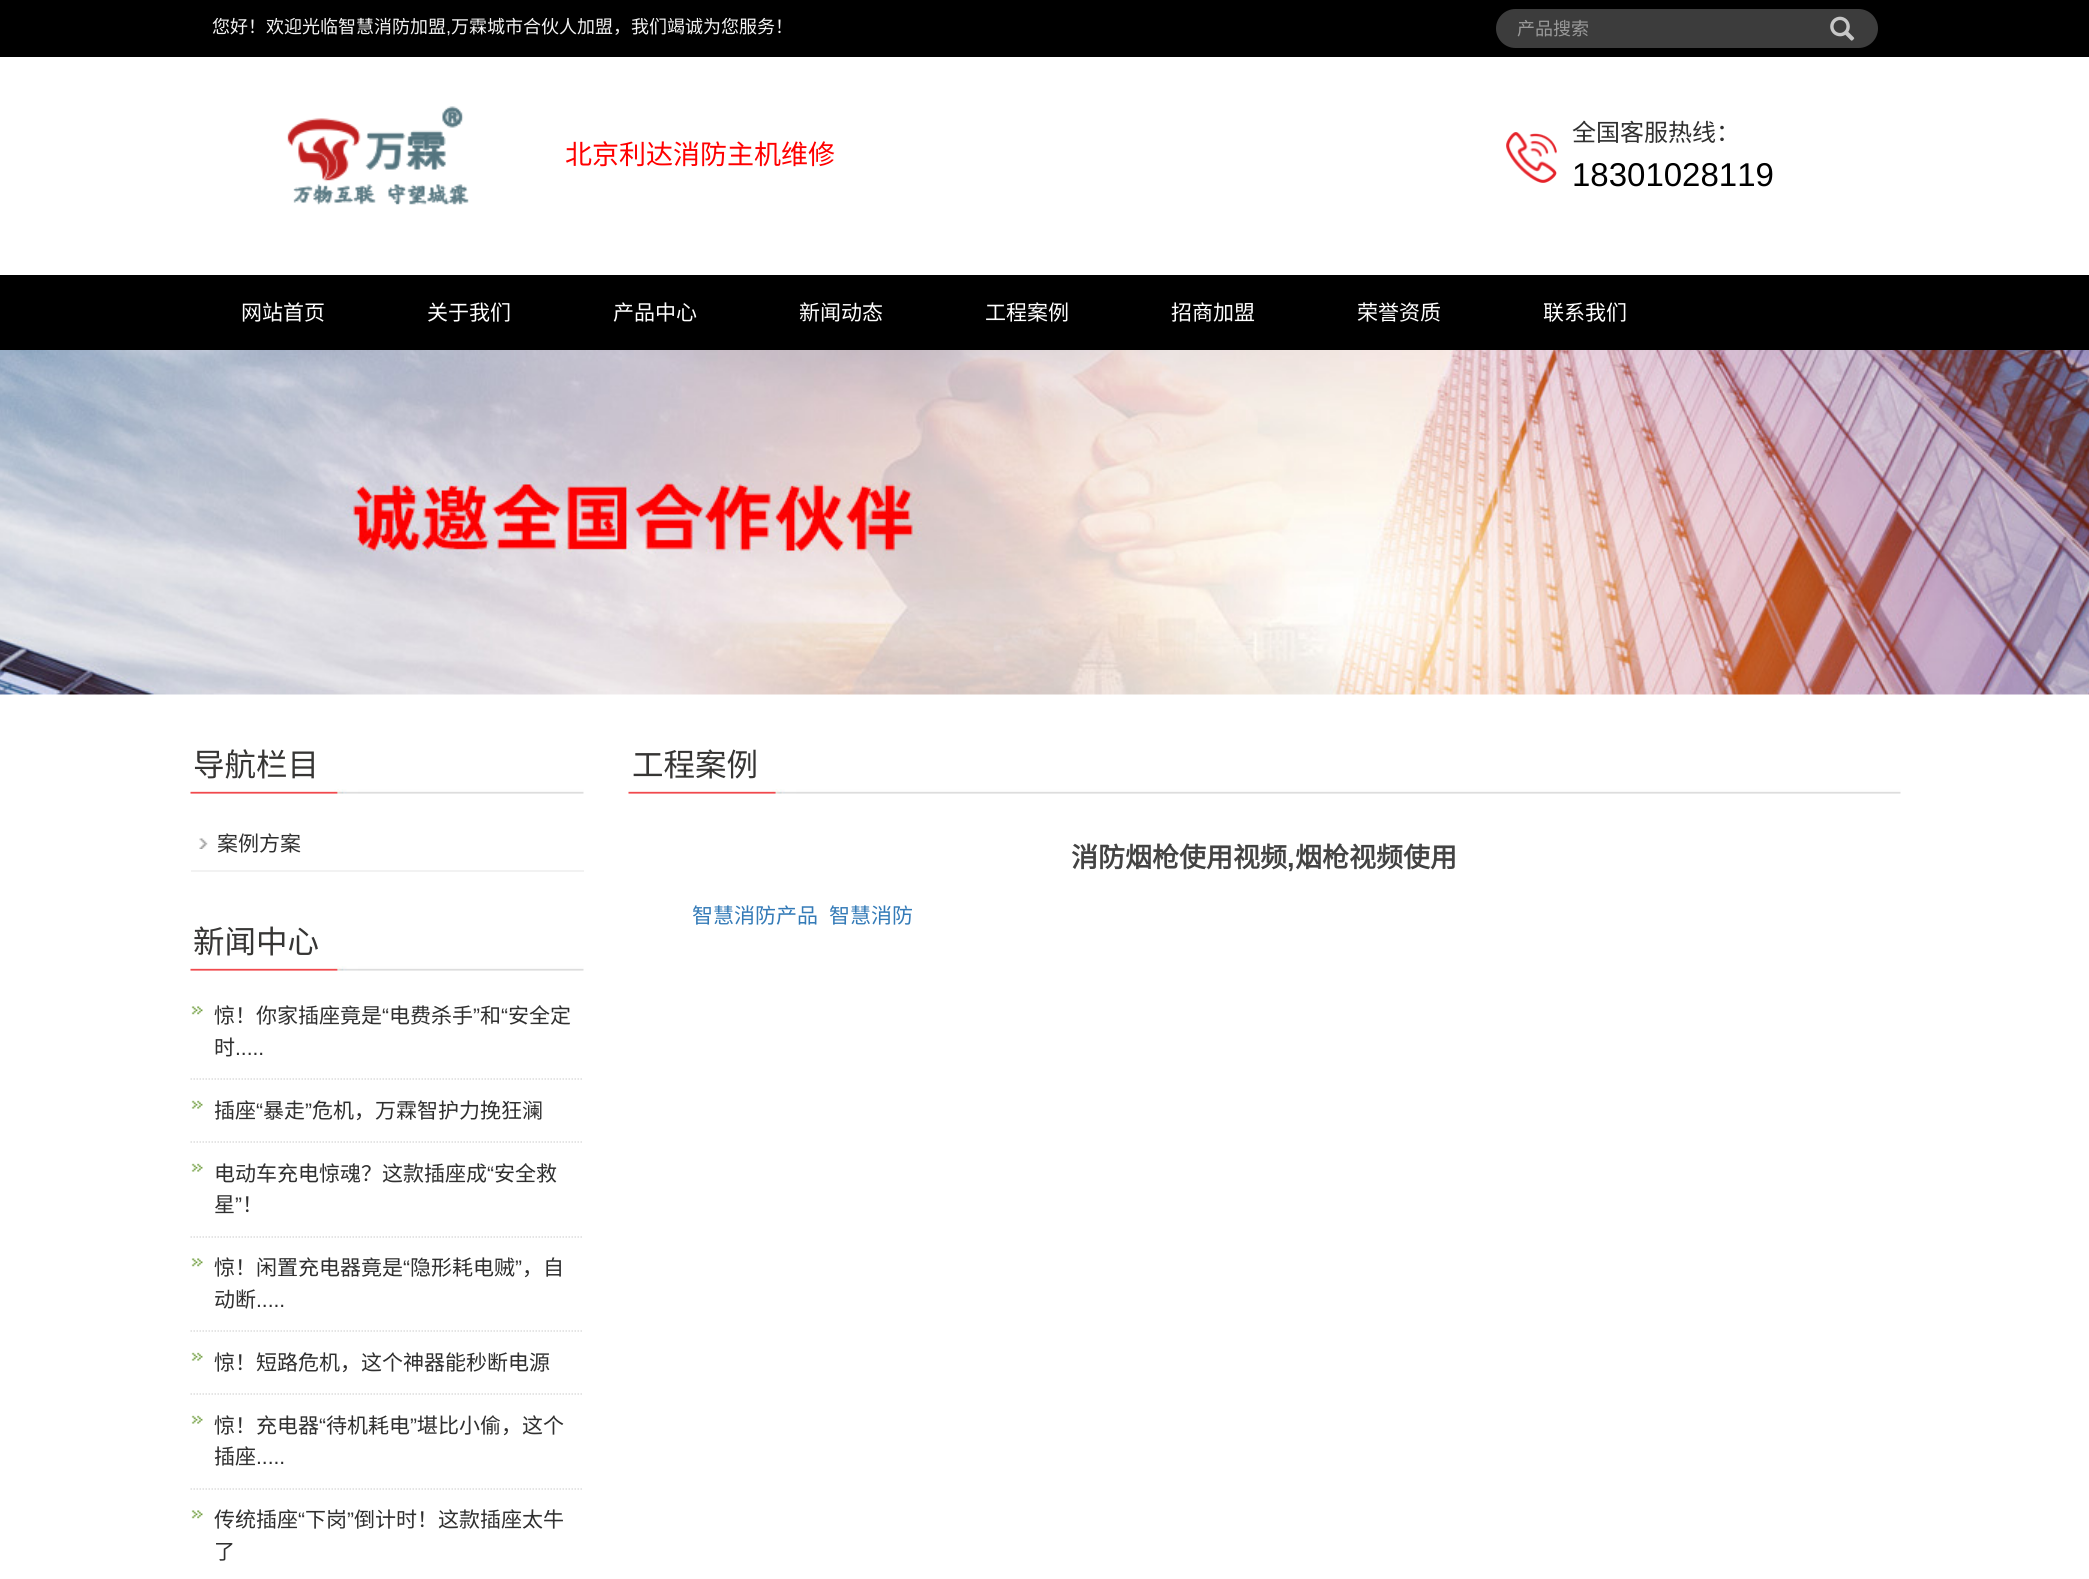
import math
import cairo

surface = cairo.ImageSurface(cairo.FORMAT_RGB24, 2089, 1579)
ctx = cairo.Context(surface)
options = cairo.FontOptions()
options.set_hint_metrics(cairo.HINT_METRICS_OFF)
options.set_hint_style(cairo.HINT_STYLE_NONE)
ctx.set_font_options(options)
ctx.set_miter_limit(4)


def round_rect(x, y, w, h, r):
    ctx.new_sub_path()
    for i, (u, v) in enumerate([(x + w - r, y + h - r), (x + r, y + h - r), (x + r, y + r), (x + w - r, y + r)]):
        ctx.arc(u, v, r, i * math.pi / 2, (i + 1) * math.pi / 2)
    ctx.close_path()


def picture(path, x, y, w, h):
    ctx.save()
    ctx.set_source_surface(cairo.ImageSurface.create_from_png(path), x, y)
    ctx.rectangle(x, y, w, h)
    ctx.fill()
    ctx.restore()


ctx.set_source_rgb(1, 1, 1)
ctx.paint()
ctx.set_source_rgb(0, 0, 0)
ctx.rectangle(0, 0, 2089, 57)
ctx.fill()
ctx.select_font_face("Noto Sans CJK SC")
ctx.set_font_size(18)
ctx.set_source_rgb(0.953, 0.953, 0.953)
ctx.move_to(212, 33)
ctx.show_text("您好！欢迎光临智慧消防加盟")
ctx.select_font_face("Liberation Sans")
ctx.move_to(446, 33)
ctx.show_text(",")
ctx.select_font_face("Noto Sans CJK SC")
ctx.move_to(451, 33)
ctx.show_text("万霖城市合伙人加盟，我们竭诚为您服务！")
ctx.set_source_rgb(0.235, 0.235, 0.235)
round_rect(1496, 9, 382, 39, 19.5)
ctx.fill()
ctx.set_source_rgb(0.6, 0.6, 0.6)
ctx.move_to(1517, 35)
ctx.show_text("产品搜索")
picture("img1.png", 1830, 16, 25, 25)
picture("img2.png", 287, 106, 182, 99)
ctx.set_font_size(27)
ctx.set_source_rgb(1, 0, 0)
ctx.move_to(565, 164)
ctx.show_text("北京利达消防主机维修")
picture("img3.png", 1506, 132, 51, 51)
ctx.set_font_size(24)
ctx.set_source_rgb(0.184, 0.184, 0.184)
ctx.move_to(1572, 141)
ctx.show_text("全国客服热线：")
ctx.select_font_face("Liberation Sans")
ctx.set_font_size(33)
ctx.set_source_rgb(0, 0, 0)
ctx.move_to(1572, 186)
ctx.show_text("18301028119")
ctx.rectangle(0, 275, 2089, 75)
ctx.fill()
ctx.select_font_face("Noto Sans CJK SC")
ctx.set_font_size(21)
ctx.set_source_rgb(1, 1, 1)
ctx.move_to(241, 320)
ctx.show_text("网站首页")
ctx.move_to(427, 320)
ctx.show_text("关于我们")
ctx.move_to(613, 320)
ctx.show_text("产品中心")
ctx.move_to(799, 320)
ctx.show_text("新闻动态")
ctx.move_to(985, 320)
ctx.show_text("工程案例")
ctx.move_to(1171, 320)
ctx.show_text("招商加盟")
ctx.move_to(1357, 320)
ctx.show_text("荣誉资质")
ctx.move_to(1543, 320)
ctx.show_text("联系我们")
picture("img4.png", 0, 350, 2089, 345)
picture("img5.png", 190, 789, 394, 5)
ctx.set_font_size(31.5)
ctx.set_source_rgb(0.212, 0.208, 0.204)
ctx.move_to(193, 776)
ctx.show_text("导航栏目")
picture("img6.png", 199, 838, 9, 11)
ctx.set_source_rgb(0.949, 0.949, 0.949)
ctx.rectangle(191, 870, 393, 2)
ctx.fill()
ctx.set_font_size(21)
ctx.set_source_rgb(0.184, 0.184, 0.184)
ctx.move_to(217, 851)
ctx.show_text("案例方案")
picture("img5.png", 190, 966, 394, 5)
ctx.set_font_size(31.5)
ctx.set_source_rgb(0.212, 0.208, 0.204)
ctx.move_to(193, 953)
ctx.show_text("新闻中心")
picture("img7.png", 191, 1006, 12, 9)
ctx.new_path()
ctx.move_to(190.5, 1079)
ctx.line_to(583.5, 1079)
ctx.set_source_rgb(0.867, 0.867, 0.867)
ctx.set_line_width(1.5)
ctx.set_dash([1.5, 1.5])
ctx.stroke()
ctx.set_font_size(21)
ctx.set_source_rgb(0.184, 0.184, 0.184)
ctx.move_to(214, 1023)
ctx.show_text("惊！你家插座竟是")
ctx.select_font_face("Liberation Sans")
ctx.move_to(382, 1023)
ctx.show_text("“")
ctx.select_font_face("Noto Sans CJK SC")
ctx.move_to(389, 1023)
ctx.show_text("电费杀手")
ctx.select_font_face("Liberation Sans")
ctx.move_to(473, 1023)
ctx.show_text("”")
ctx.select_font_face("Noto Sans CJK SC")
ctx.move_to(480, 1023)
ctx.show_text("和")
ctx.select_font_face("Liberation Sans")
ctx.move_to(501, 1023)
ctx.show_text("“")
ctx.select_font_face("Noto Sans CJK SC")
ctx.move_to(508, 1023)
ctx.show_text("安全定")
ctx.move_to(214, 1055)
ctx.show_text("时")
ctx.select_font_face("Liberation Sans")
ctx.move_to(235, 1055)
ctx.show_text(".....")
picture("img8.png", 191, 1100, 12, 9)
ctx.new_path()
ctx.move_to(190.5, 1142)
ctx.line_to(583.5, 1142)
ctx.set_source_rgb(0.867, 0.867, 0.867)
ctx.stroke()
ctx.select_font_face("Noto Sans CJK SC")
ctx.set_source_rgb(0.184, 0.184, 0.184)
ctx.move_to(214, 1118)
ctx.show_text("插座")
ctx.select_font_face("Liberation Sans")
ctx.move_to(256, 1118)
ctx.show_text("“")
ctx.select_font_face("Noto Sans CJK SC")
ctx.move_to(263, 1118)
ctx.show_text("暴走")
ctx.select_font_face("Liberation Sans")
ctx.move_to(305, 1118)
ctx.show_text("”")
ctx.select_font_face("Noto Sans CJK SC")
ctx.move_to(312, 1118)
ctx.show_text("危机，万霖智护力挽狂澜")
picture("img8.png", 191, 1163, 12, 9)
ctx.new_path()
ctx.move_to(190.5, 1237)
ctx.line_to(583.5, 1237)
ctx.set_source_rgb(0.867, 0.867, 0.867)
ctx.stroke()
ctx.set_source_rgb(0.184, 0.184, 0.184)
ctx.move_to(214, 1181)
ctx.show_text("电动车充电惊魂？这款插座成")
ctx.select_font_face("Liberation Sans")
ctx.move_to(487, 1181)
ctx.show_text("“")
ctx.select_font_face("Noto Sans CJK SC")
ctx.move_to(494, 1181)
ctx.show_text("安全救")
ctx.move_to(214, 1212)
ctx.show_text("星")
ctx.select_font_face("Liberation Sans")
ctx.move_to(235, 1212)
ctx.show_text("”")
ctx.select_font_face("Noto Sans CJK SC")
ctx.move_to(242, 1212)
ctx.show_text("！")
picture("img7.png", 191, 1258, 12, 9)
ctx.new_path()
ctx.move_to(190.5, 1331)
ctx.line_to(583.5, 1331)
ctx.set_source_rgb(0.867, 0.867, 0.867)
ctx.stroke()
ctx.set_source_rgb(0.184, 0.184, 0.184)
ctx.move_to(214, 1275)
ctx.show_text("惊！闲置充电器竟是")
ctx.select_font_face("Liberation Sans")
ctx.move_to(403, 1275)
ctx.show_text("“")
ctx.select_font_face("Noto Sans CJK SC")
ctx.move_to(410, 1275)
ctx.show_text("隐形耗电贼")
ctx.select_font_face("Liberation Sans")
ctx.move_to(515, 1275)
ctx.show_text("”")
ctx.select_font_face("Noto Sans CJK SC")
ctx.move_to(522, 1275)
ctx.show_text("，自")
ctx.move_to(214, 1307)
ctx.show_text("动断")
ctx.select_font_face("Liberation Sans")
ctx.move_to(256, 1307)
ctx.show_text(".....")
picture("img8.png", 191, 1352, 12, 9)
ctx.new_path()
ctx.move_to(190.5, 1394)
ctx.line_to(583.5, 1394)
ctx.set_source_rgb(0.867, 0.867, 0.867)
ctx.stroke()
ctx.select_font_face("Noto Sans CJK SC")
ctx.set_source_rgb(0.184, 0.184, 0.184)
ctx.move_to(214, 1370)
ctx.show_text("惊！短路危机，这个神器能秒断电源")
picture("img8.png", 191, 1415, 12, 9)
ctx.new_path()
ctx.move_to(190.5, 1489)
ctx.line_to(583.5, 1489)
ctx.set_source_rgb(0.867, 0.867, 0.867)
ctx.stroke()
ctx.set_source_rgb(0.184, 0.184, 0.184)
ctx.move_to(214, 1433)
ctx.show_text("惊！充电器")
ctx.select_font_face("Liberation Sans")
ctx.move_to(319, 1433)
ctx.show_text("“")
ctx.select_font_face("Noto Sans CJK SC")
ctx.move_to(326, 1433)
ctx.show_text("待机耗电")
ctx.select_font_face("Liberation Sans")
ctx.move_to(410, 1433)
ctx.show_text("”")
ctx.select_font_face("Noto Sans CJK SC")
ctx.move_to(417, 1433)
ctx.show_text("堪比小偷，这个")
ctx.move_to(214, 1464)
ctx.show_text("插座")
ctx.select_font_face("Liberation Sans")
ctx.move_to(256, 1464)
ctx.show_text(".....")
picture("img7.png", 191, 1510, 12, 9)
ctx.select_font_face("Noto Sans CJK SC")
ctx.move_to(214, 1527)
ctx.show_text("传统插座")
ctx.select_font_face("Liberation Sans")
ctx.move_to(298, 1527)
ctx.show_text("“")
ctx.select_font_face("Noto Sans CJK SC")
ctx.move_to(305, 1527)
ctx.show_text("下岗")
ctx.select_font_face("Liberation Sans")
ctx.move_to(347, 1527)
ctx.show_text("”")
ctx.select_font_face("Noto Sans CJK SC")
ctx.move_to(354, 1527)
ctx.show_text("倒计时！这款插座太牛")
ctx.move_to(214, 1559)
ctx.show_text("了")
picture("img9.png", 628, 789, 1273, 5)
ctx.set_font_size(31.5)
ctx.set_source_rgb(0.212, 0.208, 0.204)
ctx.move_to(632, 776)
ctx.show_text("工程案例")
ctx.select_font_face("Noto Sans CJK SC", cairo.FONT_SLANT_NORMAL, cairo.FONT_WEIGHT_BOLD)
ctx.set_font_size(27)
ctx.set_source_rgb(0.263, 0.263, 0.263)
ctx.move_to(1071, 867)
ctx.show_text("消防烟枪使用视频")
ctx.select_font_face("Liberation Sans", cairo.FONT_SLANT_NORMAL, cairo.FONT_WEIGHT_BOLD)
ctx.move_to(1287, 867)
ctx.show_text(",")
ctx.select_font_face("Noto Sans CJK SC", cairo.FONT_SLANT_NORMAL, cairo.FONT_WEIGHT_BOLD)
ctx.move_to(1295, 867)
ctx.show_text("烟枪视频使用")
ctx.select_font_face("Noto Sans CJK SC")
ctx.set_font_size(21)
ctx.set_source_rgb(0.2, 0.478, 0.718)
ctx.move_to(692, 923)
ctx.show_text("智慧消防产品")
ctx.move_to(829, 923)
ctx.show_text("智慧消防")
surface.write_to_png("page.png")
